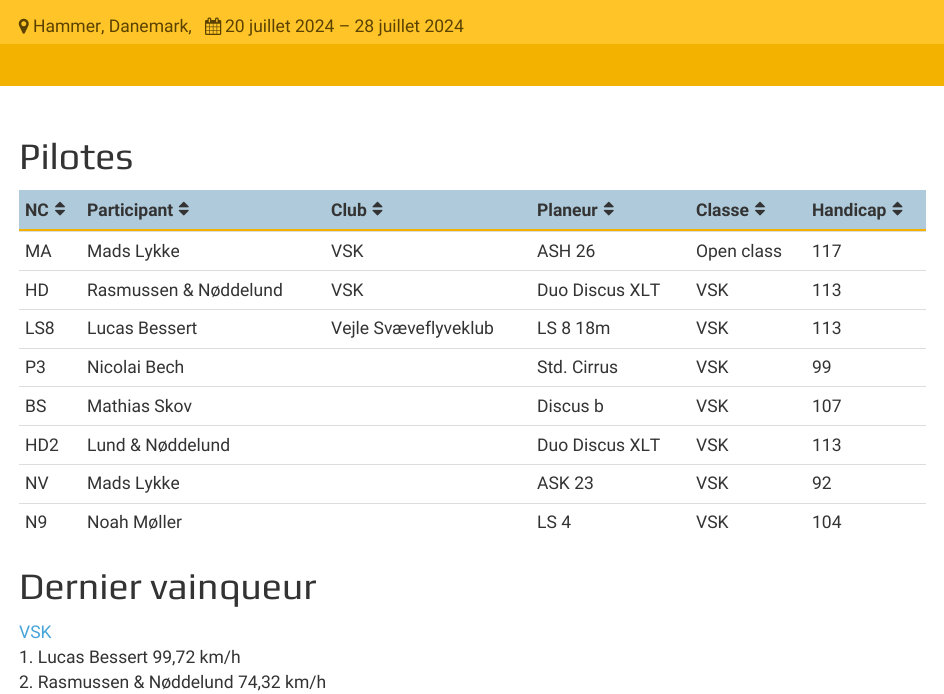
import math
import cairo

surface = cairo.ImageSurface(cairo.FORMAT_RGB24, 944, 694)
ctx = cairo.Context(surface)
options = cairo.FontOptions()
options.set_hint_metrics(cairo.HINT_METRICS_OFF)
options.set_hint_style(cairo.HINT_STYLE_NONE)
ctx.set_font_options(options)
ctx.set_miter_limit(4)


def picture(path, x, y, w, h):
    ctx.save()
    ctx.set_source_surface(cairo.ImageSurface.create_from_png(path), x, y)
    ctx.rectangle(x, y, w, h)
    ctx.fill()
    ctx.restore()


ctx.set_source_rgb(1, 1, 1)
ctx.paint()
ctx.set_source_rgb(1, 0.773, 0.157)
ctx.rectangle(0, 0, 944, 44)
ctx.fill()
picture("img1.png", 18, 18, 11, 16)
ctx.select_font_face("Roboto")
ctx.set_font_size(17.5)
ctx.set_source_rgb(0.357, 0.259, 0)
ctx.move_to(33, 32)
ctx.show_text("Hammer, Danemark,")
picture("img2.png", 205, 17, 17, 18)
ctx.move_to(225, 32)
ctx.show_text("20 juillet 2024 – 28 juillet 2024")
ctx.set_source_rgb(0.957, 0.698, 0)
ctx.rectangle(0, 44, 944, 42)
ctx.fill()
ctx.select_font_face("Play")
ctx.set_font_size(37.5)
ctx.set_source_rgb(0.2, 0.2, 0.2)
ctx.move_to(19, 169)
ctx.show_text("Pilotes")
ctx.set_source_rgb(0.686, 0.792, 0.855)
ctx.rectangle(19, 190, 907, 39)
ctx.fill()
ctx.set_source_rgb(0.957, 0.698, 0)
ctx.rectangle(19, 229, 907, 2)
ctx.fill()
ctx.select_font_face("Roboto", cairo.FONT_SLANT_NORMAL, cairo.FONT_WEIGHT_BOLD)
ctx.set_font_size(17.5)
ctx.set_source_rgb(0.2, 0.2, 0.2)
ctx.move_to(25, 216)
ctx.show_text("NC")
picture("img3.png", 55, 201, 10, 15)
ctx.move_to(87, 216)
ctx.show_text("Participant")
picture("img4.png", 178, 201, 11, 15)
ctx.move_to(331, 216)
ctx.show_text("Club")
picture("img5.png", 372, 201, 11, 15)
ctx.move_to(537, 216)
ctx.show_text("Planeur")
picture("img4.png", 603, 201, 11, 15)
ctx.move_to(696, 216)
ctx.show_text("Classe")
picture("img3.png", 755, 201, 10, 15)
ctx.move_to(812, 216)
ctx.show_text("Handicap")
picture("img5.png", 892, 201, 11, 15)
ctx.set_source_rgb(0.867, 0.867, 0.867)
ctx.rectangle(19, 231, 907, 1)
ctx.fill()
ctx.select_font_face("Roboto")
ctx.set_source_rgb(0.2, 0.2, 0.2)
ctx.move_to(25, 257)
ctx.show_text("MA")
ctx.move_to(87, 257)
ctx.show_text("Mads Lykke")
ctx.move_to(331, 257)
ctx.show_text("VSK")
ctx.move_to(537, 257)
ctx.show_text("ASH 26")
ctx.move_to(696, 257)
ctx.show_text("Open class")
ctx.move_to(812, 257)
ctx.show_text("117")
ctx.set_source_rgb(0.867, 0.867, 0.867)
ctx.rectangle(19, 270, 907, 1)
ctx.fill()
ctx.set_source_rgb(0.2, 0.2, 0.2)
ctx.move_to(25, 296)
ctx.show_text("HD")
ctx.move_to(87, 296)
ctx.show_text("Rasmussen & Nøddelund")
ctx.move_to(331, 296)
ctx.show_text("VSK")
ctx.move_to(537, 296)
ctx.show_text("Duo Discus XLT")
ctx.move_to(696, 296)
ctx.show_text("VSK")
ctx.move_to(812, 296)
ctx.show_text("113")
ctx.set_source_rgb(0.867, 0.867, 0.867)
ctx.rectangle(19, 309, 907, 1)
ctx.fill()
ctx.set_source_rgb(0.2, 0.2, 0.2)
ctx.move_to(25, 334)
ctx.show_text("LS8")
ctx.move_to(87, 334)
ctx.show_text("Lucas Bessert")
ctx.move_to(331, 334)
ctx.show_text("Vejle Svæveflyveklub")
ctx.move_to(537, 334)
ctx.show_text("LS 8 18m")
ctx.move_to(696, 334)
ctx.show_text("VSK")
ctx.move_to(812, 334)
ctx.show_text("113")
ctx.set_source_rgb(0.867, 0.867, 0.867)
ctx.rectangle(19, 348, 907, 1)
ctx.fill()
ctx.set_source_rgb(0.2, 0.2, 0.2)
ctx.move_to(25, 373)
ctx.show_text("P3")
ctx.move_to(87, 373)
ctx.show_text("Nicolai Bech")
ctx.move_to(537, 373)
ctx.show_text("Std. Cirrus")
ctx.move_to(696, 373)
ctx.show_text("VSK")
ctx.move_to(812, 373)
ctx.show_text("99")
ctx.set_source_rgb(0.867, 0.867, 0.867)
ctx.rectangle(19, 386, 907, 1)
ctx.fill()
ctx.set_source_rgb(0.2, 0.2, 0.2)
ctx.move_to(25, 412)
ctx.show_text("BS")
ctx.move_to(87, 412)
ctx.show_text("Mathias Skov")
ctx.move_to(537, 412)
ctx.show_text("Discus b")
ctx.move_to(696, 412)
ctx.show_text("VSK")
ctx.move_to(812, 412)
ctx.show_text("107")
ctx.set_source_rgb(0.867, 0.867, 0.867)
ctx.rectangle(19, 425, 907, 1)
ctx.fill()
ctx.set_source_rgb(0.2, 0.2, 0.2)
ctx.move_to(25, 451)
ctx.show_text("HD2")
ctx.move_to(87, 451)
ctx.show_text("Lund & Nøddelund")
ctx.move_to(537, 451)
ctx.show_text("Duo Discus XLT")
ctx.move_to(696, 451)
ctx.show_text("VSK")
ctx.move_to(812, 451)
ctx.show_text("113")
ctx.set_source_rgb(0.867, 0.867, 0.867)
ctx.rectangle(19, 464, 907, 1)
ctx.fill()
ctx.set_source_rgb(0.2, 0.2, 0.2)
ctx.move_to(25, 489)
ctx.show_text("NV")
ctx.move_to(87, 489)
ctx.show_text("Mads Lykke")
ctx.move_to(537, 489)
ctx.show_text("ASK 23")
ctx.move_to(696, 489)
ctx.show_text("VSK")
ctx.move_to(812, 489)
ctx.show_text("92")
ctx.set_source_rgb(0.867, 0.867, 0.867)
ctx.rectangle(19, 503, 907, 1)
ctx.fill()
ctx.set_source_rgb(0.2, 0.2, 0.2)
ctx.move_to(25, 528)
ctx.show_text("N9")
ctx.move_to(87, 528)
ctx.show_text("Noah Møller")
ctx.move_to(537, 528)
ctx.show_text("LS 4")
ctx.move_to(696, 528)
ctx.show_text("VSK")
ctx.move_to(812, 528)
ctx.show_text("104")
ctx.select_font_face("Play")
ctx.set_font_size(37.5)
ctx.move_to(19, 599)
ctx.show_text("Dernier vainqueur")
ctx.select_font_face("Roboto")
ctx.set_font_size(17.5)
ctx.set_source_rgb(0.278, 0.643, 0.851)
ctx.move_to(19, 638)
ctx.show_text("VSK")
ctx.set_source_rgb(0.2, 0.2, 0.2)
ctx.move_to(19, 663)
ctx.show_text("1. Lucas Bessert 99,72 km/h")
ctx.move_to(19, 688)
ctx.show_text("2. Rasmussen & Nøddelund 74,32 km/h")
surface.write_to_png("page.png")
